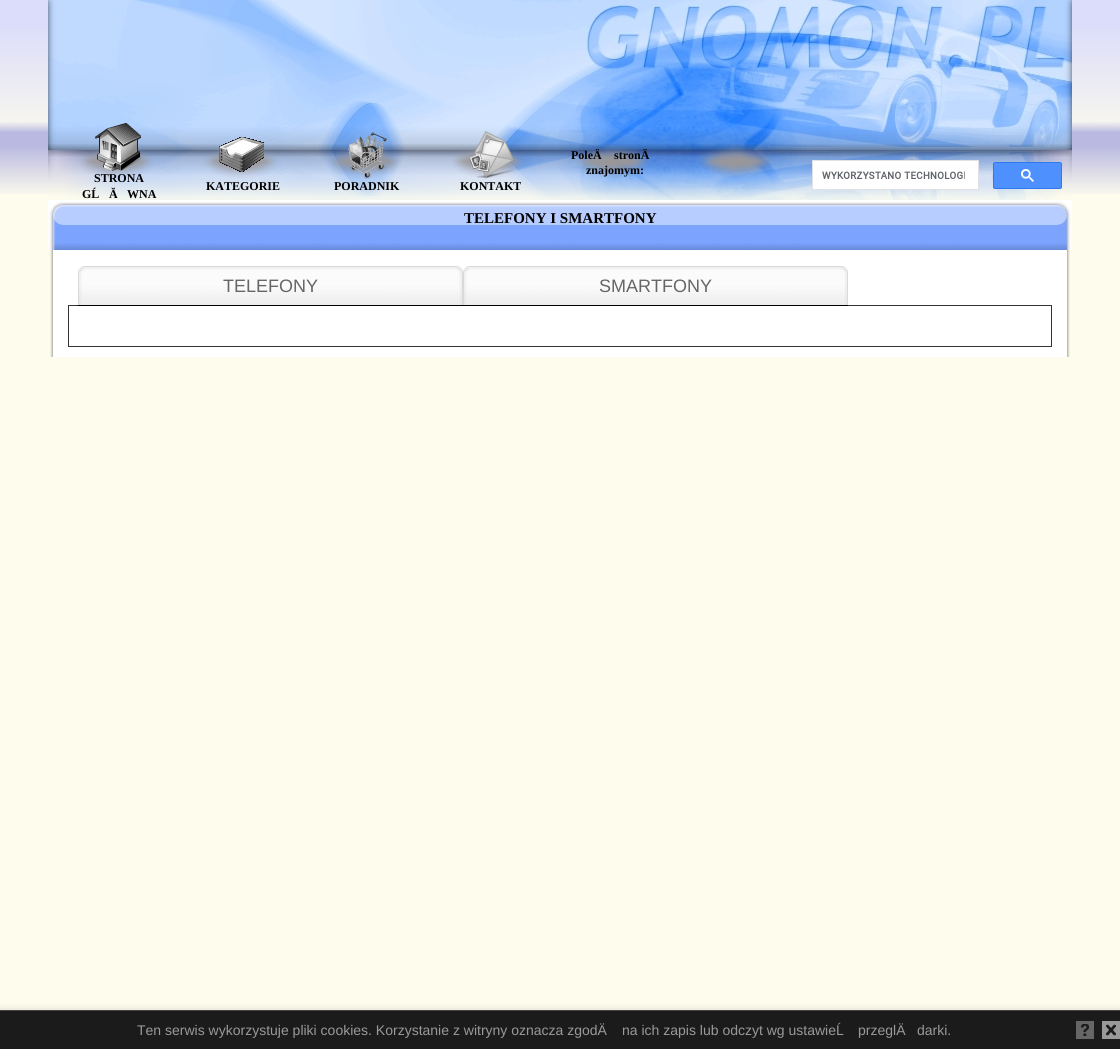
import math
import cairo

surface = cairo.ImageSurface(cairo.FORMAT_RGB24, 1120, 1049)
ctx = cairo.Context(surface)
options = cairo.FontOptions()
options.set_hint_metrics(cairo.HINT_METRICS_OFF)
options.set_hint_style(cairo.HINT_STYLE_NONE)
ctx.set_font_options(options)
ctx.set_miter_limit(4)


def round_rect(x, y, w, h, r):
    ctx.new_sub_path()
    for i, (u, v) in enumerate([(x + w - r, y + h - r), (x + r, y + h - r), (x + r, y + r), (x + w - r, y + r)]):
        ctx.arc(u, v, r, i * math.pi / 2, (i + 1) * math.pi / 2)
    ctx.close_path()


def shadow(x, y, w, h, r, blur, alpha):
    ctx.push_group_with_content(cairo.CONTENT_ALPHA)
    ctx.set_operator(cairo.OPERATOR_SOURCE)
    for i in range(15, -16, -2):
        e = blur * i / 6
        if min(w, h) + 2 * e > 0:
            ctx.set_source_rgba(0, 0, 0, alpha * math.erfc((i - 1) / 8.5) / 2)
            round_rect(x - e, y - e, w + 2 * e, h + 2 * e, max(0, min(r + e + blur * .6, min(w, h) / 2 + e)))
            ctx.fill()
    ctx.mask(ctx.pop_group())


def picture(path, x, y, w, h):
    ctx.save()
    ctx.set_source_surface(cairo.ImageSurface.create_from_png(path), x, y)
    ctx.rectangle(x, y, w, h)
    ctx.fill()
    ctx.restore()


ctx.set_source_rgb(0.992, 0.988, 0.929)
ctx.paint()
picture("img1.png", 0, 0, 1120, 194)
picture("img2.png", 48, 0, 1024, 120)
picture("img3.png", 48, 120, 1024, 80)
picture("img4.png", 576, 145, 73, 33)
ctx.select_font_face("Liberation Serif", cairo.FONT_SLANT_NORMAL, cairo.FONT_WEIGHT_BOLD)
ctx.set_font_size(12)
ctx.set_source_rgb(0, 0, 0)
ctx.move_to(571, 159)
ctx.show_text("PoleÄ")
ctx.move_to(614, 159)
ctx.show_text("stronÄ")
ctx.move_to(586, 174)
ctx.show_text("znajomym:")
picture("img5.png", 700, 144, 73, 34)
picture("img6.png", 80, 146, 73, 32)
picture("img7.png", 95, 123, 47, 48)
ctx.move_to(94, 182)
ctx.show_text("STRONA")
ctx.move_to(82, 198)
ctx.show_text("GĹ")
ctx.move_to(109, 198)
ctx.show_text("Ă")
ctx.move_to(127, 198)
ctx.show_text("WNA")
picture("img8.png", 204, 147, 73, 31)
picture("img9.png", 219, 137, 45, 35)
ctx.move_to(206, 190)
ctx.show_text("KATEGORIE")
picture("img10.png", 328, 145, 73, 33)
picture("img11.png", 348, 132, 39, 47)
ctx.move_to(334, 190)
ctx.show_text("PORADNIK")
picture("img12.png", 452, 145, 73, 33)
picture("img13.png", 469, 131, 45, 48)
ctx.move_to(460, 190)
ctx.show_text("KONTAKT")
ctx.set_source_rgb(1, 1, 1)
ctx.rectangle(812.5, 160.5, 166, 29)
ctx.fill_preserve()
ctx.set_source_rgb(0.875, 0.882, 0.898)
ctx.set_line_width(1)
ctx.stroke()
picture("img14.png", 822, 171, 143, 8)
ctx.set_source_rgb(0.302, 0.565, 0.996)
round_rect(993.5, 162.5, 68, 26, 1.5)
ctx.fill_preserve()
ctx.set_source_rgb(0.188, 0.475, 0.929)
ctx.stroke()
picture("img15.png", 1021, 169, 13, 13)
picture("img16.png", 48, 200, 1024, 50)
ctx.set_font_size(15)
ctx.set_source_rgb(0, 0, 0)
ctx.move_to(464, 223)
ctx.show_text("TELEFONY I SMARTFONY")
picture("img17.png", 50, 250, 1020, 107)
ctx.rectangle(68.5, 305.5, 983, 41)
ctx.set_source_rgb(0.2, 0.2, 0.2)
ctx.stroke()
picture("img18.png", 78, 266, 385, 40)
picture("img19.png", 78, 266, 7, 39)
ctx.select_font_face("Liberation Sans")
ctx.set_font_size(18)
ctx.set_source_rgb(0.4, 0.4, 0.4)
ctx.move_to(223, 292)
ctx.show_text("TELEFONY")
picture("img18.png", 463, 266, 385, 40)
picture("img19.png", 463, 266, 7, 39)
ctx.move_to(599, 292)
ctx.show_text("SMARTFONY")
ctx.set_source_rgb(0, 0, 0)
shadow(0, 1010, 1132, 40, 0, 4, 0.15)
ctx.set_source_rgb(0.106, 0.106, 0.106)
ctx.rectangle(0, 1011, 1120, 38)
ctx.fill()
ctx.set_source_rgb(0.267, 0.267, 0.267)
ctx.rectangle(0, 1010, 1120, 1)
ctx.fill()
ctx.set_font_size(14)
ctx.set_source_rgb(0.6, 0.6, 0.6)
ctx.move_to(137, 1035)
ctx.show_text("Ten serwis wykorzystuje pliki cookies. Korzystanie z witryny oznacza zgodÄ")
ctx.move_to(622, 1035)
ctx.show_text("na ich zapis lub odczyt wg ustawieĹ")
ctx.move_to(858, 1035)
ctx.show_text("przeglÄ")
ctx.move_to(917, 1035)
ctx.show_text("darki.")
picture("img20.png", 1076, 1021, 18, 18)
picture("img21.png", 1102, 1021, 18, 18)
surface.write_to_png("page.png")
